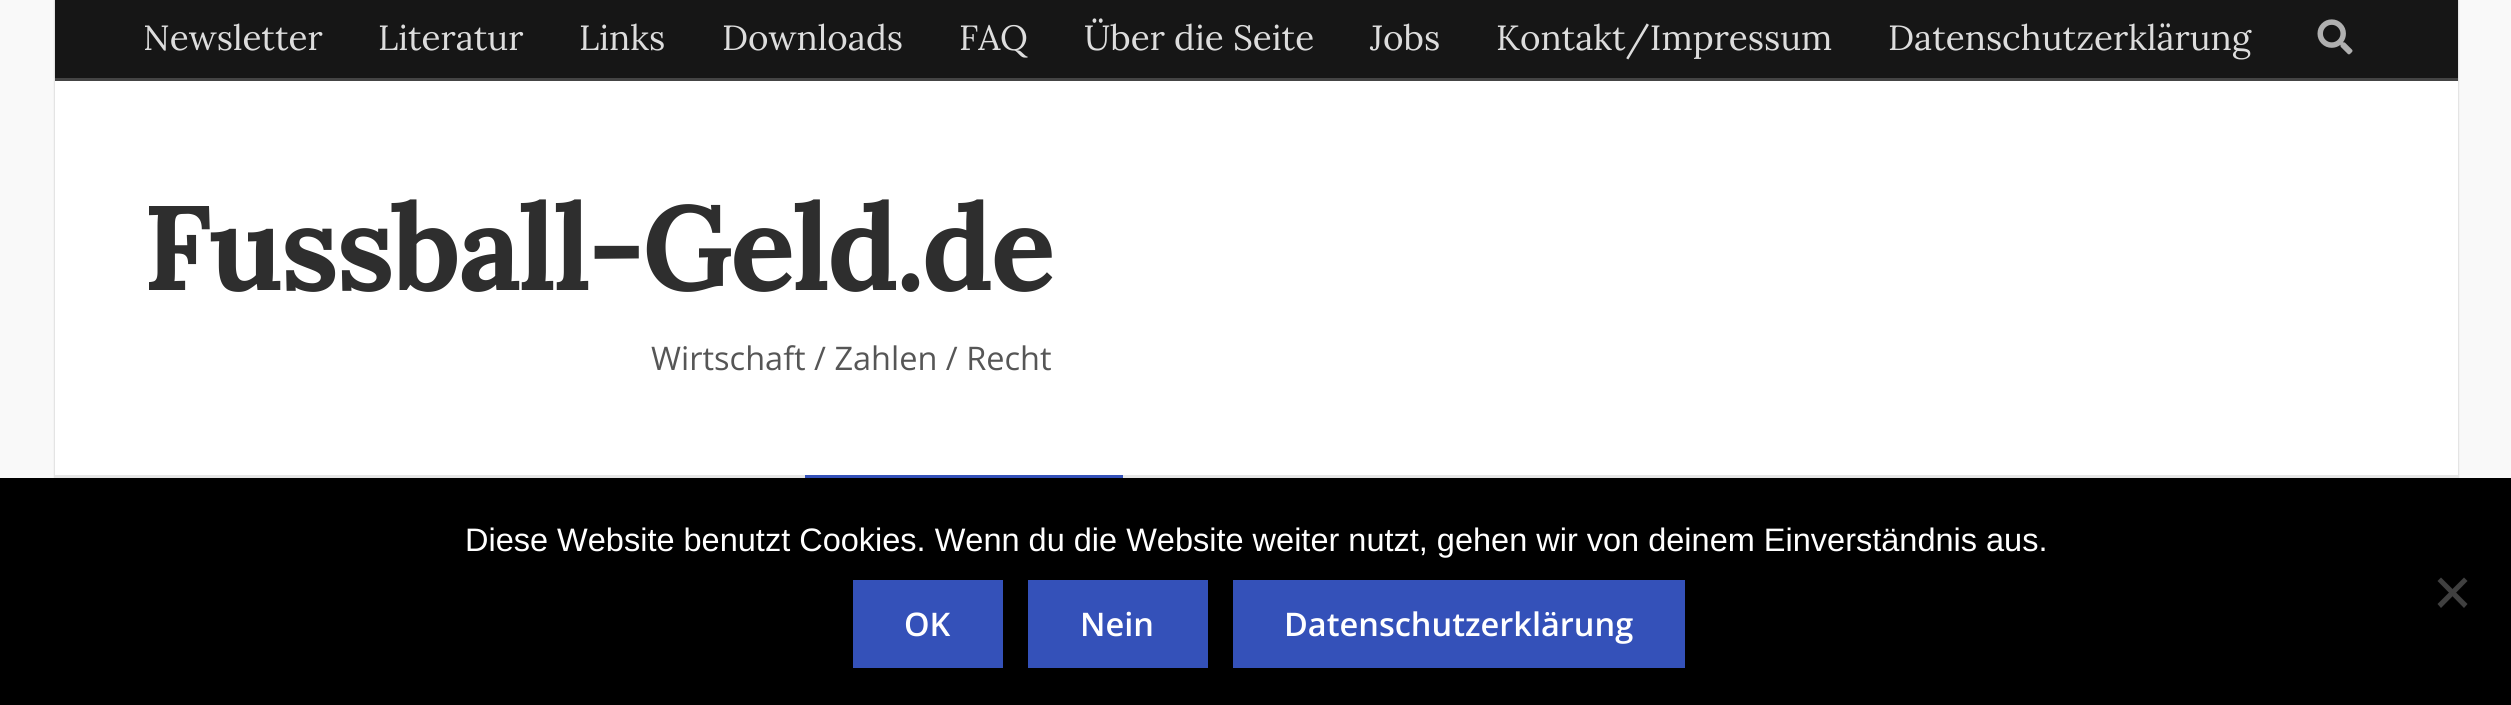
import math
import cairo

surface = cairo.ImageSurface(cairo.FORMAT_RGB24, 2511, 705)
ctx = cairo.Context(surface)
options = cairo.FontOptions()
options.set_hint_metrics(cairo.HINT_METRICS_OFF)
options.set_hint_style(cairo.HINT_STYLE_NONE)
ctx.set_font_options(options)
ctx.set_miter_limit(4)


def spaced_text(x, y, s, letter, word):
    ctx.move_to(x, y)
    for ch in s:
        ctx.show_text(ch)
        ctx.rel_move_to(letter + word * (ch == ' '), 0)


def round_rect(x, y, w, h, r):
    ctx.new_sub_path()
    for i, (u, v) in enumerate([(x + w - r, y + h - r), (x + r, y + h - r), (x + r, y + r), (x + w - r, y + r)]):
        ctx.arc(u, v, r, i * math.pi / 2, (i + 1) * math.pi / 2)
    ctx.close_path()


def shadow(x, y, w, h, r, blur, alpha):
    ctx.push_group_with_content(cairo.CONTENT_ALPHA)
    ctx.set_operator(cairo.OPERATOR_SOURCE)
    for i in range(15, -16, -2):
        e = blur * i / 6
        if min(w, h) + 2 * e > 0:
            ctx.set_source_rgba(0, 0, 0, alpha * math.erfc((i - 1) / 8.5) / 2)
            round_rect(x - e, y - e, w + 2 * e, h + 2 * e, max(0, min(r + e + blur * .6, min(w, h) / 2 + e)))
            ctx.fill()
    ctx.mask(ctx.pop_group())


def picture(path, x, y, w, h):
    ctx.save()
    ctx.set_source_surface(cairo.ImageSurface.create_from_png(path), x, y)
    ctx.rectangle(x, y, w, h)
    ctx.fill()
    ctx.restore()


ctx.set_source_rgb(0.976, 0.976, 0.976)
ctx.paint()
ctx.set_source_rgb(0, 0, 0)
shadow(55, 0, 2403, 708, 0, 1, 0.25)
ctx.set_source_rgb(1, 1, 1)
ctx.rectangle(55, 81, 2403, 394)
ctx.fill()
ctx.set_source_rgb(0.086, 0.086, 0.086)
ctx.rectangle(55, 0, 2403, 78)
ctx.fill()
ctx.set_source_rgb(0.267, 0.267, 0.267)
ctx.rectangle(55, 78, 2403, 3)
ctx.fill()
ctx.select_font_face("Lora")
ctx.set_font_size(35)
ctx.set_source_rgb(0.867, 0.867, 0.867)
ctx.move_to(143, 50)
ctx.show_text("Newsletter")
ctx.move_to(378, 50)
ctx.show_text("Literatur")
ctx.move_to(579, 50)
ctx.show_text("Links")
ctx.move_to(722, 50)
ctx.show_text("Downloads")
ctx.move_to(959, 50)
ctx.show_text("FAQ")
ctx.move_to(1084, 50)
ctx.show_text("Über die Seite")
ctx.move_to(1370, 50)
ctx.show_text("Jobs")
ctx.move_to(1496, 50)
ctx.show_text("Kontakt/Impressum")
ctx.move_to(1888, 50)
ctx.show_text("Datenschutzerklärung")
picture("img1.png", 2317, 19, 36, 36)
ctx.select_font_face("Lora", cairo.FONT_SLANT_NORMAL, cairo.FONT_WEIGHT_BOLD)
ctx.set_font_size(120)
ctx.set_source_rgb(0.18, 0.18, 0.18)
spaced_text(143, 290, "Fussball-Geld.de", -2.5, 0)
ctx.select_font_face("Open Sans")
ctx.set_font_size(32.5)
ctx.set_source_rgb(0.337, 0.337, 0.337)
ctx.move_to(651, 370)
ctx.show_text("Wirtschaft / Zahlen / Recht")
ctx.set_source_rgb(0.902, 0.902, 0.902)
ctx.rectangle(55, 475, 2403, 3)
ctx.fill()
ctx.set_source_rgb(0.204, 0.318, 0.725)
ctx.rectangle(805, 475, 318, 3)
ctx.fill()
ctx.set_source_rgb(0, 0, 0)
ctx.rectangle(0, 478, 2511, 227)
ctx.fill()
ctx.select_font_face("Liberation Sans")
ctx.set_source_rgb(1, 1, 1)
ctx.move_to(465, 551)
ctx.show_text("Diese Website benutzt Cookies. Wenn du die Website weiter nutzt, gehen wir von deinem Einverständnis aus.")
ctx.set_source_rgb(0.251, 0.251, 0.251)
ctx.new_path()
ctx.move_to(2464, 577.5)
ctx.line_to(2467.5, 581)
ctx.line_to(2441, 608)
ctx.line_to(2437.5, 604)
ctx.close_path()
ctx.fill()
ctx.new_path()
ctx.move_to(2437.5, 581)
ctx.line_to(2441, 577.5)
ctx.line_to(2467.5, 604)
ctx.line_to(2464, 608)
ctx.close_path()
ctx.fill()
ctx.set_source_rgb(0.204, 0.318, 0.725)
ctx.rectangle(853, 580, 150, 88)
ctx.fill()
ctx.select_font_face("Open Sans SemiBold")
ctx.set_source_rgb(1, 1, 1)
ctx.move_to(904, 636)
ctx.show_text("OK")
ctx.set_source_rgb(0.204, 0.318, 0.725)
ctx.rectangle(1028, 580, 180, 88)
ctx.fill()
ctx.set_source_rgb(1, 1, 1)
ctx.move_to(1080, 636)
ctx.show_text("Nein")
ctx.set_source_rgb(0.204, 0.318, 0.725)
ctx.rectangle(1233, 580, 452, 88)
ctx.fill()
ctx.set_source_rgb(1, 1, 1)
ctx.move_to(1284, 636)
ctx.show_text("Datenschutzerklärung")
surface.write_to_png("page.png")
